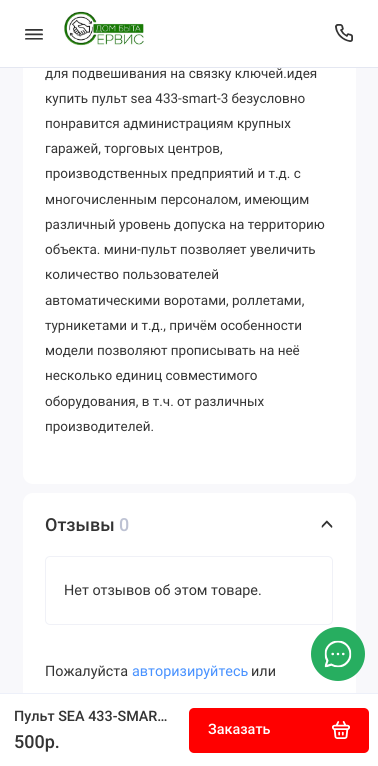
import math
import cairo

surface = cairo.ImageSurface(cairo.FORMAT_RGB24, 378, 766)
ctx = cairo.Context(surface)
options = cairo.FontOptions()
options.set_hint_metrics(cairo.HINT_METRICS_OFF)
options.set_hint_style(cairo.HINT_STYLE_NONE)
ctx.set_font_options(options)
ctx.set_miter_limit(4)


def round_rect(x, y, w, h, r):
    ctx.new_sub_path()
    for i, (u, v) in enumerate([(x + w - r, y + h - r), (x + r, y + h - r), (x + r, y + r), (x + w - r, y + r)]):
        ctx.arc(u, v, r, i * math.pi / 2, (i + 1) * math.pi / 2)
    ctx.close_path()


def picture(path, x, y, w, h):
    ctx.save()
    ctx.set_source_surface(cairo.ImageSurface.create_from_png(path), x, y)
    ctx.rectangle(x, y, w, h)
    ctx.fill()
    ctx.restore()


ctx.set_source_rgb(0.969, 0.969, 0.984)
ctx.paint()
ctx.set_source_rgb(1, 1, 1)
round_rect(23, -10, 333, 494, 10)
ctx.fill()
ctx.rectangle(0, 0, 378, 67)
ctx.fill()
ctx.set_source_rgb(0.894, 0.906, 0.945)
ctx.rectangle(0, 67, 378, 1)
ctx.fill()
picture("img1.png", 25, 29, 18, 11)
picture("img2.png", 64, 11, 80, 36)
picture("img3.png", 335, 24, 18, 18)
ctx.set_source_rgb(1, 1, 1)
round_rect(23, 493, 333, 259, 10)
ctx.fill()
ctx.set_source_rgb(0.153, 0.682, 0.376)
ctx.arc(338, 654, 27, 0, 2 * math.pi)
ctx.fill()
picture("img4.png", 324, 640, 28, 28)
ctx.select_font_face("Roboto")
ctx.set_font_size(13.5)
ctx.set_source_rgb(0.204, 0.204, 0.204)
ctx.move_to(45, 78)
ctx.show_text("для подвешивания на связку ключей.идея")
ctx.move_to(45, 103)
ctx.show_text("купить пульт sea 433-smart-3 безусловно")
ctx.move_to(45, 128)
ctx.show_text("понравится администрациям крупных")
ctx.move_to(45, 153)
ctx.show_text("гаражей, торговых центров,")
ctx.move_to(45, 178)
ctx.show_text("производственных предприятий и т.д. с")
ctx.move_to(45, 204)
ctx.show_text("многочисленным персоналом, имеющим")
ctx.move_to(45, 229)
ctx.show_text("различный уровень допуска на территорию")
ctx.move_to(45, 254)
ctx.show_text("объекта. мини-пульт позволяет увеличить")
ctx.move_to(45, 279)
ctx.show_text("количество пользователей")
ctx.move_to(45, 305)
ctx.show_text("автоматическими воротами, роллетами,")
ctx.move_to(45, 330)
ctx.show_text("турникетами и т.д., причём особенности")
ctx.move_to(45, 355)
ctx.show_text("модели позволяют прописывать на неё")
ctx.move_to(45, 380)
ctx.show_text("несколько единиц совместимого")
ctx.move_to(45, 406)
ctx.show_text("оборудования, в т.ч. от различных")
ctx.move_to(45, 431)
ctx.show_text("производителей.")
ctx.select_font_face("Roboto Medium")
ctx.set_font_size(18)
ctx.move_to(45, 531)
ctx.show_text("Отзывы")
ctx.set_source_rgb(0.741, 0.761, 0.827)
ctx.move_to(119, 531)
ctx.show_text("0")
picture("img5.png", 321, 520, 12, 8)
round_rect(45.5, 556.5, 287, 68, 4.5)
ctx.set_source_rgb(0.941, 0.945, 0.965)
ctx.set_line_width(1)
ctx.stroke()
ctx.select_font_face("Roboto")
ctx.set_font_size(14.4)
ctx.set_source_rgb(0.204, 0.204, 0.204)
ctx.move_to(64, 595)
ctx.show_text("Нет отзывов об этом товаре.")
ctx.move_to(45, 676)
ctx.show_text("Пожалуйста")
ctx.set_source_rgb(0.278, 0.569, 1)
ctx.move_to(132, 676)
ctx.show_text("авторизируйтесь")
ctx.set_source_rgb(0.204, 0.204, 0.204)
ctx.move_to(251, 676)
ctx.show_text("или")
ctx.set_source_rgb(1, 1, 1)
ctx.rectangle(0, 694, 378, 72)
ctx.fill()
ctx.set_source_rgb(0.929, 0.941, 0.973)
ctx.rectangle(0, 693, 378, 1)
ctx.fill()
ctx.select_font_face("Roboto Medium")
ctx.set_source_rgb(0.204, 0.204, 0.204)
ctx.move_to(14, 721)
ctx.show_text("Пульт SEA 433-SMAR…")
ctx.set_font_size(18)
ctx.move_to(14, 748)
ctx.show_text("500р.")
ctx.set_source_rgb(1, 0, 0)
round_rect(189, 708, 180, 45, 5)
ctx.fill()
ctx.set_font_size(14.4)
ctx.set_source_rgb(1, 1, 1)
ctx.move_to(208, 734)
ctx.show_text("Заказать")
picture("img6.png", 332, 721, 18, 18)
surface.write_to_png("page.png")
